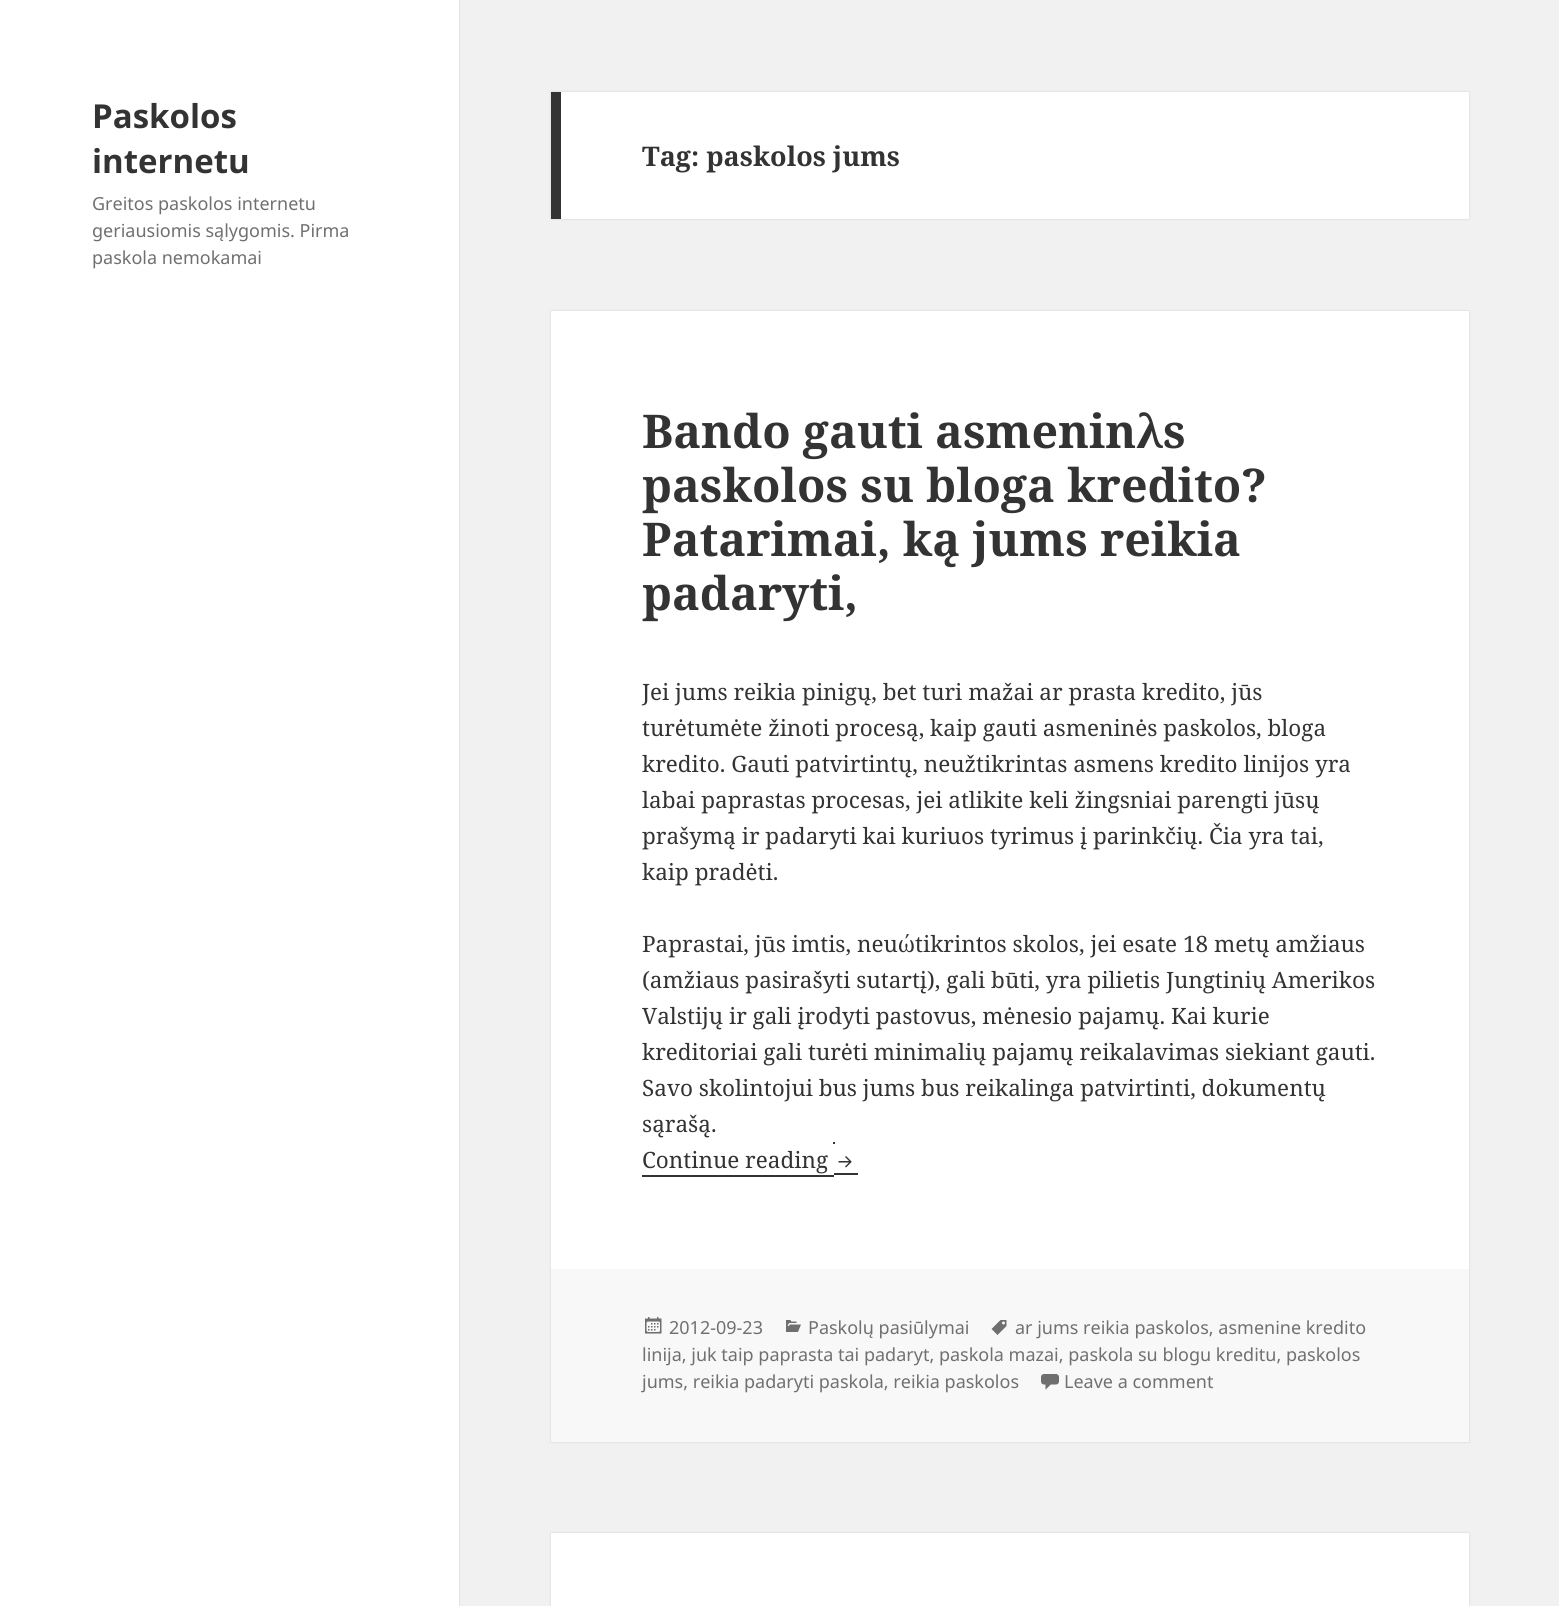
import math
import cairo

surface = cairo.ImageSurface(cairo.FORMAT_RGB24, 1559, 1606)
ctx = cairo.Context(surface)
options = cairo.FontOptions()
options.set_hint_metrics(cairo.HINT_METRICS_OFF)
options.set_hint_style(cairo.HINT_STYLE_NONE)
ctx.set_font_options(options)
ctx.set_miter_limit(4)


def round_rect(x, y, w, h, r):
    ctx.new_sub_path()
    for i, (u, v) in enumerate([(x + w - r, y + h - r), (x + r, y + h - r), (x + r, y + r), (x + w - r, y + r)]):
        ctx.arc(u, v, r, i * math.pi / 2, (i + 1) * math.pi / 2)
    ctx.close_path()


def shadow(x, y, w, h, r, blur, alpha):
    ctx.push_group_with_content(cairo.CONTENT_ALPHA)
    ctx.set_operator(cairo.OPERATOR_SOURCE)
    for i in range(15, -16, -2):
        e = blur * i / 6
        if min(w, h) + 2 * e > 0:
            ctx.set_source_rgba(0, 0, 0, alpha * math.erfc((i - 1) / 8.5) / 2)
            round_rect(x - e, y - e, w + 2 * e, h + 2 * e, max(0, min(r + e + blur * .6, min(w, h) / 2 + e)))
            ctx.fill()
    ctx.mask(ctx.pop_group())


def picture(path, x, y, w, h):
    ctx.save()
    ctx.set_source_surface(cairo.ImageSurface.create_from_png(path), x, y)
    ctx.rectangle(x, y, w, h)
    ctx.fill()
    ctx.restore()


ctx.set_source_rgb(0.945, 0.945, 0.945)
ctx.paint()
ctx.set_source_rgb(0, 0, 0)
shadow(0, 0, 459, 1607, 0, 1, 0.15)
ctx.set_source_rgb(1, 1, 1)
ctx.rectangle(0, 0, 459, 1606)
ctx.fill()
ctx.select_font_face("Noto Sans", cairo.FONT_SLANT_NORMAL, cairo.FONT_WEIGHT_BOLD)
ctx.set_font_size(33)
ctx.set_source_rgb(0.2, 0.2, 0.2)
ctx.move_to(92, 128)
ctx.show_text("Paskolos")
ctx.move_to(92, 173)
ctx.show_text("internetu")
ctx.select_font_face("Noto Sans")
ctx.set_font_size(18)
ctx.set_source_rgb(0.439, 0.439, 0.439)
ctx.move_to(92, 210)
ctx.show_text("Greitos paskolos internetu")
ctx.move_to(92, 237)
ctx.show_text("geriausiomis sąlygomis. Pirma")
ctx.move_to(92, 264)
ctx.show_text("paskola nemokamai")
ctx.set_source_rgb(0, 0, 0)
shadow(551, 92, 918, 127, 0, 1, 0.15)
ctx.set_source_rgb(1, 1, 1)
ctx.rectangle(561, 92, 908, 127)
ctx.fill()
ctx.set_source_rgb(0.2, 0.2, 0.2)
ctx.rectangle(551, 92, 10, 127)
ctx.fill()
ctx.select_font_face("Noto Serif", cairo.FONT_SLANT_NORMAL, cairo.FONT_WEIGHT_BOLD)
ctx.set_font_size(27)
ctx.move_to(642, 166)
ctx.show_text("Tag: paskolos jums")
ctx.set_source_rgb(0, 0, 0)
shadow(551, 311, 918, 1131, 0, 1, 0.15)
ctx.set_source_rgb(1, 1, 1)
ctx.rectangle(551, 311, 918, 958)
ctx.fill()
ctx.set_font_size(46.5)
ctx.set_source_rgb(0.2, 0.2, 0.2)
ctx.move_to(642, 448)
ctx.show_text("Bando gauti asmeninλs")
ctx.move_to(642, 502)
ctx.show_text("paskolos su bloga kredito?")
ctx.move_to(642, 556)
ctx.show_text("Patarimai, ką jums reikia")
ctx.move_to(642, 610)
ctx.show_text("padaryti,")
ctx.select_font_face("Noto Serif")
ctx.set_font_size(22.5)
ctx.move_to(642, 700)
ctx.show_text("Jei jums reikia pinigų, bet turi mažai ar prasta kredito, jūs")
ctx.move_to(642, 736)
ctx.show_text("turėtumėte žinoti procesą, kaip gauti asmeninės paskolos, bloga")
ctx.move_to(642, 772)
ctx.show_text("kredito. Gauti patvirtintų, neužtikrintas asmens kredito linijos yra")
ctx.move_to(642, 808)
ctx.show_text("labai paprastas procesas, jei atlikite keli žingsniai parengti jūsų")
ctx.move_to(642, 844)
ctx.show_text("prašymą ir padaryti kai kuriuos tyrimus į parinkčių. Čia yra tai,")
ctx.move_to(642, 880)
ctx.show_text("kaip pradėti.")
ctx.move_to(642, 952)
ctx.show_text("Paprastai, jūs imtis, neuώtikrintos skolos, jei esate 18 metų amžiaus")
ctx.move_to(642, 988)
ctx.show_text("(amžiaus pasirašyti sutartį), gali būti, yra pilietis Jungtinių Amerikos")
ctx.move_to(642, 1024)
ctx.show_text("Valstijų ir gali įrodyti pastovus, mėnesio pajamų. Kai kurie")
ctx.move_to(642, 1060)
ctx.show_text("kreditoriai gali turėti minimalių pajamų reikalavimas siekiant gauti.")
ctx.move_to(642, 1096)
ctx.show_text("Savo skolintojui bus jums bus reikalinga patvirtinti, dokumentų")
ctx.move_to(642, 1132)
ctx.show_text("sąrašą.")
ctx.rectangle(642, 1175, 192, 2)
ctx.fill()
ctx.rectangle(833, 1142, 2, 2)
ctx.fill()
ctx.rectangle(834, 1173, 24, 2)
ctx.fill()
ctx.move_to(642, 1168)
ctx.show_text("Continue reading")
picture("img1.png", 838, 1156, 14, 12)
ctx.set_source_rgb(0.969, 0.969, 0.969)
ctx.rectangle(551, 1269, 918, 173)
ctx.fill()
picture("img2.png", 991, 1320, 16, 15)
ctx.select_font_face("Noto Sans")
ctx.set_font_size(18)
ctx.set_source_rgb(0.439, 0.439, 0.439)
ctx.move_to(1015, 1334)
ctx.show_text("ar jums reikia paskolos, asmenine kredito")
ctx.move_to(642, 1361)
ctx.show_text("linija, juk taip paprasta tai padaryt, paskola mazai, paskola su blogu kreditu, paskolos")
ctx.move_to(642, 1388)
ctx.show_text("jums, reikia padaryti paskola, reikia paskolos")
picture("img3.png", 645, 1317, 17, 17)
ctx.move_to(669, 1334)
ctx.show_text("2012-09-23")
picture("img4.png", 786, 1320, 15, 12)
ctx.move_to(808, 1334)
ctx.show_text("Paskolų pasiūlymai")
picture("img5.png", 1041, 1374, 18, 16)
ctx.move_to(1064, 1388)
ctx.show_text("Leave a comment")
ctx.set_source_rgb(0, 0, 0)
shadow(551, 1533, 918, 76, 0, 1, 0.15)
ctx.set_source_rgb(1, 1, 1)
ctx.rectangle(551, 1533, 918, 73)
ctx.fill()
surface.write_to_png("page.png")
